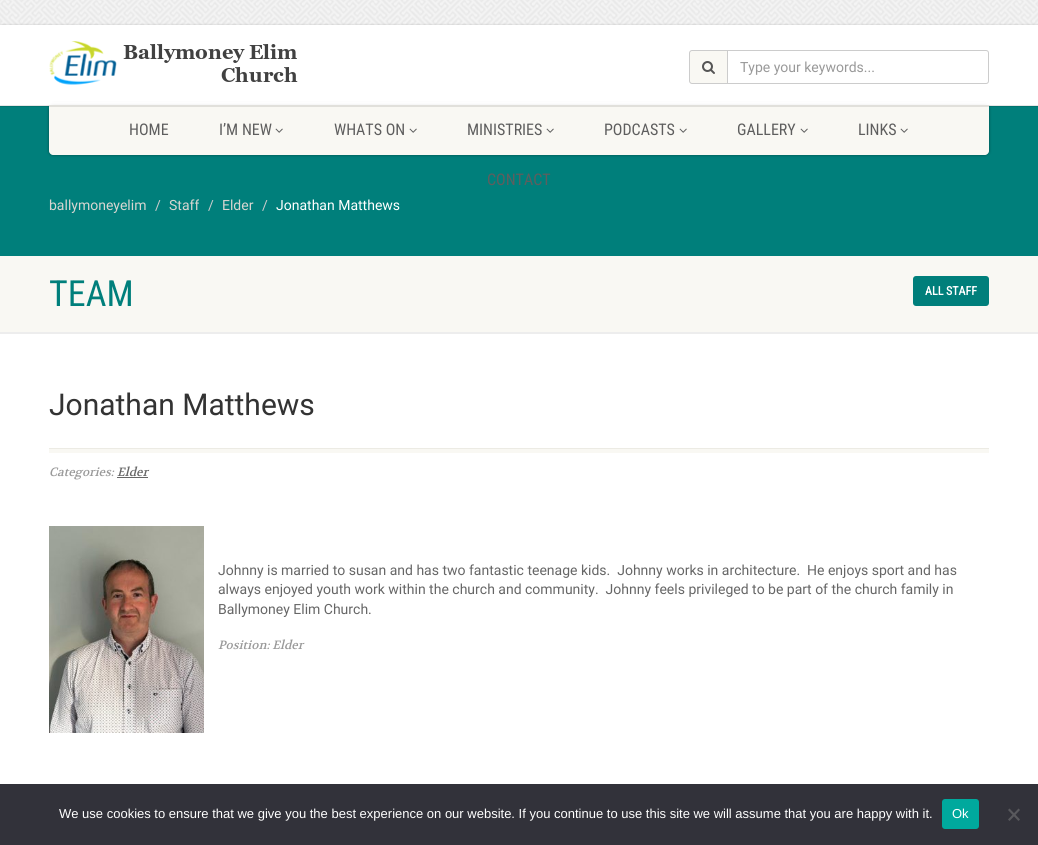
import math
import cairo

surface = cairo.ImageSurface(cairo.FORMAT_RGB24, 1038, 845)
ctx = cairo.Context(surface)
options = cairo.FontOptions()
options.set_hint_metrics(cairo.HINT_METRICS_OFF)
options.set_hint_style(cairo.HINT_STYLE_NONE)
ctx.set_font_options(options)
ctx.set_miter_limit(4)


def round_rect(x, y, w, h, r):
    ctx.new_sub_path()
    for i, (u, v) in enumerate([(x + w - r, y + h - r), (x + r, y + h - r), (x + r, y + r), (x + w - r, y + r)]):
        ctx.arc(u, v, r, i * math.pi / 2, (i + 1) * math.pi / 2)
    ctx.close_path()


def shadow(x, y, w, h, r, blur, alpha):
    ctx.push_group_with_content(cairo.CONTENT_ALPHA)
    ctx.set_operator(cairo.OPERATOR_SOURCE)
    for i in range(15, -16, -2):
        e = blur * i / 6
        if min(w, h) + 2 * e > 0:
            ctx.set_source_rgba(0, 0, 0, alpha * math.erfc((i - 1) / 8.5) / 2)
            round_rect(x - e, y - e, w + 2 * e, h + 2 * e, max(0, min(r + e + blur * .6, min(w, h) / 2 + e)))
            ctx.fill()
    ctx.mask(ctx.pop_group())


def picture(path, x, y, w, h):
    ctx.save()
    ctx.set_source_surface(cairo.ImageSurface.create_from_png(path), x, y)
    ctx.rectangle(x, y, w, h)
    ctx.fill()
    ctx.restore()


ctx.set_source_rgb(1, 1, 1)
ctx.paint()
picture("img1.png", 0, 0, 1038, 25)
ctx.set_source_rgb(0, 0, 0)
shadow(0, 25, 1038, 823, 0, 1, 0.2)
ctx.set_source_rgb(1, 1, 1)
ctx.rectangle(0, 25, 1038, 759)
ctx.fill()
ctx.set_source_rgb(0, 0.498, 0.482)
ctx.rectangle(0, 106, 1038, 150)
ctx.fill()
ctx.set_source_rgb(0, 0, 0)
shadow(49, 105, 940, 50, 4, 1.5, 0.4)
ctx.set_source_rgb(0.973, 0.969, 0.953)
ctx.new_path()
ctx.move_to(49, 105)
ctx.line_to(989, 105)
ctx.line_to(989, 151)
ctx.curve_to(989, 153, 987, 155, 985, 155)
ctx.line_to(53, 155)
ctx.curve_to(51, 155, 49, 153, 49, 151)
ctx.close_path()
ctx.fill()
ctx.set_source_rgba(0, 0, 0, 0.1)
ctx.rectangle(0, 105, 1038, 2)
ctx.fill()
ctx.set_source_rgba(1, 1, 1, 0.8)
ctx.rectangle(48, 102, 942, 3)
ctx.fill()
picture("img2.png", 49, 41, 249, 44)
ctx.set_source_rgb(0.973, 0.969, 0.953)
ctx.new_path()
ctx.move_to(692, 50)
ctx.line_to(727, 50)
ctx.line_to(727, 84)
ctx.line_to(692, 84)
ctx.curve_to(690.5, 84, 689, 82.5, 689, 81)
ctx.line_to(689, 53)
ctx.curve_to(689, 51.5, 690.5, 50, 692, 50)
ctx.close_path()
ctx.fill()
ctx.set_source_rgb(0.8, 0.8, 0.8)
ctx.set_fill_rule(cairo.FILL_RULE_EVEN_ODD)
ctx.new_path()
ctx.move_to(692, 50)
ctx.line_to(727, 50)
ctx.line_to(727, 84)
ctx.line_to(692, 84)
ctx.curve_to(690.5, 84, 689, 82.5, 689, 81)
ctx.line_to(689, 53)
ctx.curve_to(689, 51.5, 690.5, 50, 692, 50)
ctx.close_path()
ctx.move_to(692, 51)
ctx.line_to(727, 51)
ctx.line_to(727, 83)
ctx.line_to(692, 83)
ctx.curve_to(691, 83, 690, 82, 690, 81)
ctx.line_to(690, 53)
ctx.curve_to(690, 52, 691, 51, 692, 51)
ctx.close_path()
ctx.fill()
picture("img3.png", 702, 61, 13, 13)
ctx.new_path()
ctx.move_to(727.5, 50.5)
ctx.line_to(986, 50.5)
ctx.curve_to(987.5, 50.5, 988.5, 51.5, 988.5, 53)
ctx.line_to(988.5, 81)
ctx.curve_to(988.5, 82.5, 987.5, 83.5, 986, 83.5)
ctx.line_to(727.5, 83.5)
ctx.close_path()
ctx.set_line_width(1)
ctx.stroke()
ctx.select_font_face("Roboto")
ctx.set_font_size(14)
ctx.set_source_rgb(0.6, 0.6, 0.6)
ctx.move_to(740, 72)
ctx.show_text("Type your keywords...")
ctx.select_font_face("Roboto Condensed")
ctx.set_font_size(16)
ctx.set_source_rgb(0.369, 0.369, 0.369)
ctx.move_to(129, 135)
ctx.show_text("HOME")
ctx.move_to(219, 135)
ctx.show_text("I’M NEW")
picture("img4.png", 275, 128, 8, 5)
ctx.move_to(334, 135)
ctx.show_text("WHATS ON")
picture("img4.png", 409, 128, 8, 5)
ctx.move_to(467, 135)
ctx.show_text("MINISTRIES")
picture("img4.png", 546, 128, 8, 5)
ctx.move_to(604, 135)
ctx.show_text("PODCASTS")
picture("img4.png", 679, 128, 8, 5)
ctx.move_to(737, 135)
ctx.show_text("GALLERY")
picture("img4.png", 800, 128, 8, 5)
ctx.move_to(858, 135)
ctx.show_text("LINKS")
picture("img4.png", 900, 128, 8, 5)
ctx.move_to(487, 185)
ctx.show_text("CONTACT")
ctx.select_font_face("Roboto")
ctx.set_font_size(14)
ctx.set_source_rgb(0.847, 0.839, 0.82)
ctx.move_to(49, 210)
ctx.show_text("ballymoneyelim")
ctx.set_source_rgb(0.8, 0.8, 0.8)
ctx.move_to(155, 210)
ctx.show_text("/")
ctx.set_source_rgb(0.847, 0.839, 0.82)
ctx.move_to(169, 210)
ctx.show_text("Staff")
ctx.set_source_rgb(0.8, 0.8, 0.8)
ctx.move_to(208, 210)
ctx.show_text("/")
ctx.set_source_rgb(0.847, 0.839, 0.82)
ctx.move_to(222, 210)
ctx.show_text("Elder")
ctx.set_source_rgb(0.8, 0.8, 0.8)
ctx.move_to(262, 210)
ctx.show_text("/")
ctx.set_source_rgb(1, 1, 1)
ctx.move_to(276, 210)
ctx.show_text("Jonathan Matthews")
ctx.set_source_rgb(0.929, 0.929, 0.929)
ctx.rectangle(0, 332, 1038, 2)
ctx.fill()
ctx.set_source_rgb(0.973, 0.969, 0.953)
ctx.rectangle(0, 256, 1038, 76)
ctx.fill()
ctx.select_font_face("Roboto Condensed")
ctx.set_font_size(36)
ctx.set_source_rgb(0, 0.498, 0.482)
ctx.move_to(49, 306)
ctx.show_text("TEAM")
round_rect(913, 276, 76, 30, 3)
ctx.fill()
ctx.select_font_face("Roboto Condensed", cairo.FONT_SLANT_NORMAL, cairo.FONT_WEIGHT_BOLD)
ctx.set_font_size(12)
ctx.set_source_rgb(1, 1, 1)
ctx.move_to(925, 295)
ctx.show_text("ALL STAFF")
ctx.set_source_rgb(0.925, 0.918, 0.894)
ctx.rectangle(49, 448, 940, 1)
ctx.fill()
ctx.select_font_face("Roboto")
ctx.set_font_size(30)
ctx.set_source_rgb(0.2, 0.2, 0.2)
ctx.move_to(49, 415)
ctx.show_text("Jonathan Matthews")
ctx.select_font_face("Volkhov", cairo.FONT_SLANT_ITALIC)
ctx.set_font_size(12)
ctx.set_source_rgb(0.6, 0.6, 0.6)
ctx.move_to(49, 476)
ctx.show_text("Categories:")
ctx.set_source_rgb(0.4, 0.4, 0.4)
ctx.move_to(117, 476)
ctx.show_text("Elder")
ctx.rectangle(117, 477, 31, 1)
ctx.fill()
ctx.set_source_rgb(0.973, 0.969, 0.953)
ctx.rectangle(49, 449, 940, 4)
ctx.fill()
picture("img5.png", 49, 526, 155, 207)
ctx.select_font_face("Roboto")
ctx.set_font_size(14)
ctx.set_source_rgb(0.4, 0.4, 0.4)
ctx.move_to(218, 575)
ctx.show_text("Johnny is married to susan and has two fantastic teenage kids.  Johnny works in architecture.  He enjoys sport and has")
ctx.move_to(218, 594)
ctx.show_text("always enjoyed youth work within the church and community.  Johnny feels privileged to be part of the church family in")
ctx.move_to(218, 614)
ctx.show_text("Ballymoney Elim Church.")
ctx.select_font_face("Volkhov", cairo.FONT_SLANT_ITALIC)
ctx.set_font_size(12)
ctx.set_source_rgb(0.6, 0.6, 0.6)
ctx.move_to(218, 649)
ctx.show_text("Position: Elder")
ctx.set_source_rgb(0.196, 0.196, 0.227)
ctx.rectangle(0, 784, 1038, 61)
ctx.fill()
ctx.select_font_face("Liberation Sans")
ctx.set_font_size(13)
ctx.set_source_rgb(1, 1, 1)
ctx.move_to(59, 818)
ctx.show_text("We use cookies to ensure that we give you the best experience on our website. If you continue to use this site we will assume that you are happy with it.")
ctx.set_source_rgb(0, 0.663, 0.616)
round_rect(942, 799, 37, 30, 3)
ctx.fill()
ctx.set_source_rgb(1, 1, 1)
ctx.move_to(952, 818)
ctx.show_text("Ok")
ctx.set_source_rgb(0.349, 0.349, 0.365)
ctx.set_fill_rule(cairo.FILL_RULE_WINDING)
ctx.new_path()
ctx.move_to(1018.5, 808.5)
ctx.line_to(1020, 810)
ctx.line_to(1009.5, 821)
ctx.line_to(1008, 819.5)
ctx.close_path()
ctx.fill()
ctx.new_path()
ctx.move_to(1008, 810)
ctx.line_to(1009.5, 808.5)
ctx.line_to(1020, 819.5)
ctx.line_to(1018.5, 821)
ctx.close_path()
ctx.fill()
surface.write_to_png("page.png")
